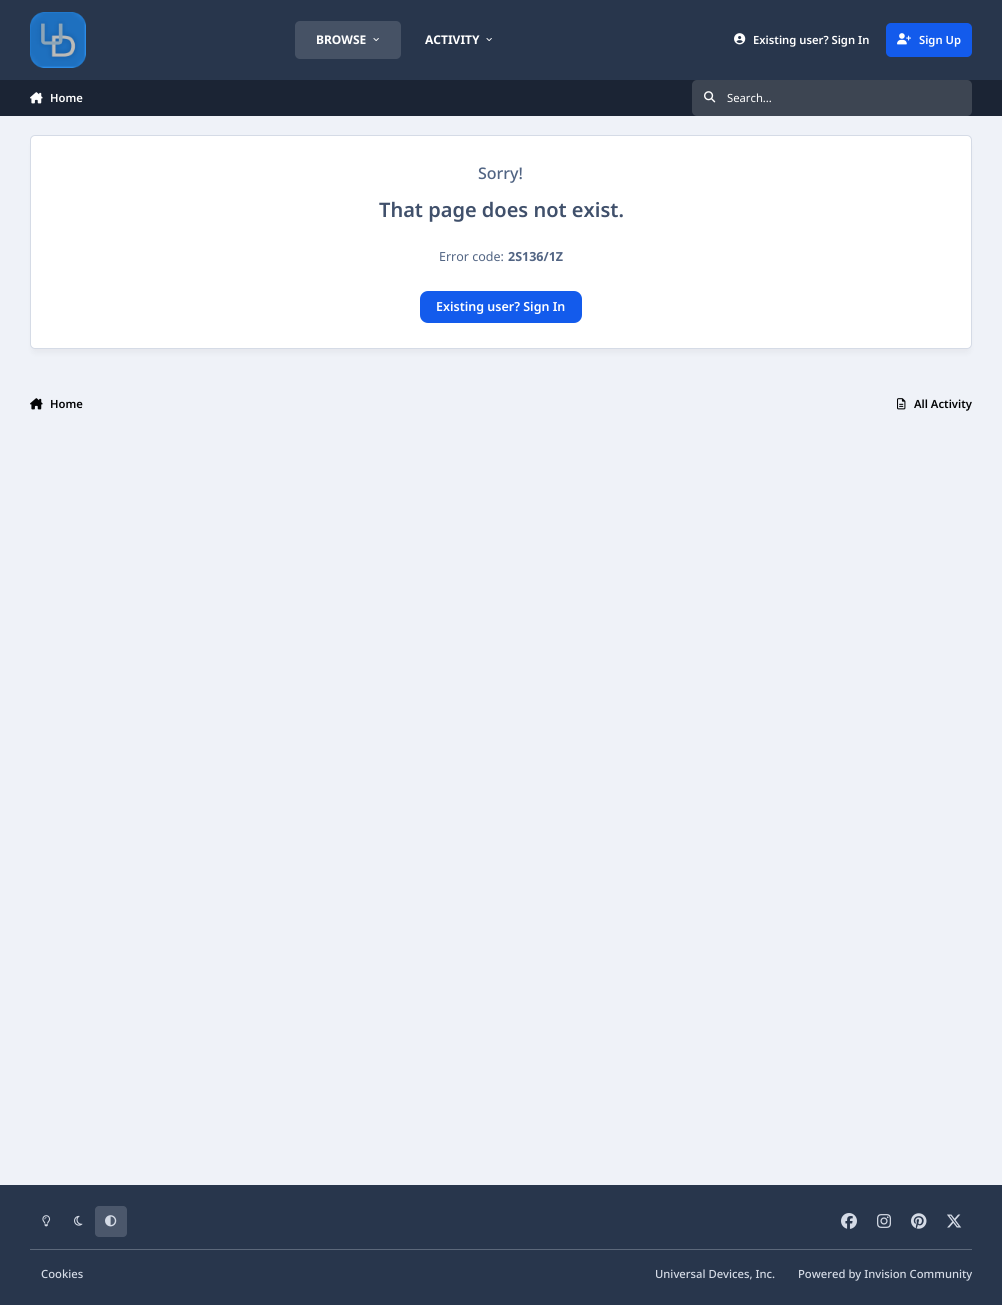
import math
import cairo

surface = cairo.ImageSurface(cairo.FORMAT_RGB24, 1002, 1305)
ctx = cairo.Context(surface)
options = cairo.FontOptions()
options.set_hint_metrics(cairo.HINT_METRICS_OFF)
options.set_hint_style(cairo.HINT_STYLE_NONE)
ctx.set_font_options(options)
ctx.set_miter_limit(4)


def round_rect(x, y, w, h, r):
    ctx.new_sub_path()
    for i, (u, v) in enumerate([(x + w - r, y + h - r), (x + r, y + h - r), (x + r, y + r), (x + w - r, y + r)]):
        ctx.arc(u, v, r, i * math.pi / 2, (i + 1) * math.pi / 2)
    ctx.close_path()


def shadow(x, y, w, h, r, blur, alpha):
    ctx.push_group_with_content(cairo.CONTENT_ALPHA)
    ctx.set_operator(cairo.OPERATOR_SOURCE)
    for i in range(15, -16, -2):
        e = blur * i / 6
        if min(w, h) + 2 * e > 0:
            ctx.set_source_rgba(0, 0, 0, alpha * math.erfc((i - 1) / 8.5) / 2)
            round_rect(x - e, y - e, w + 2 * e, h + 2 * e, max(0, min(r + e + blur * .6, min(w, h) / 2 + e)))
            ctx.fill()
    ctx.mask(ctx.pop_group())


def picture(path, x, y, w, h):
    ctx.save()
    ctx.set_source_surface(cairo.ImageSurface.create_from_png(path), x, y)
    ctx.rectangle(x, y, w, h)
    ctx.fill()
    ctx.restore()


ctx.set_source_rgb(0.937, 0.949, 0.969)
ctx.paint()
ctx.set_source_rgb(0.157, 0.212, 0.298)
ctx.rectangle(0, 0, 1002, 80)
ctx.fill()
picture("img1.png", 30, 12, 56, 56)
ctx.set_source_rgb(0.275, 0.322, 0.396)
round_rect(295, 21, 106, 38, 5)
ctx.fill()
ctx.select_font_face("Noto Sans", cairo.FONT_SLANT_NORMAL, cairo.FONT_WEIGHT_BOLD)
ctx.set_font_size(12)
ctx.set_source_rgb(1, 1, 1)
ctx.move_to(316, 44)
ctx.show_text("BROWSE")
picture("img2.png", 373, 38, 6, 4)
ctx.move_to(425, 44)
ctx.show_text("ACTIVITY")
picture("img3.png", 486, 38, 6, 4)
picture("img4.png", 734, 33, 12, 12)
ctx.select_font_face("Noto Sans SemiBold")
ctx.set_font_size(11.25)
ctx.move_to(753, 44)
ctx.show_text("Existing user? Sign In")
ctx.set_source_rgb(0.075, 0.357, 0.925)
round_rect(886, 23, 86, 34, 5)
ctx.fill()
picture("img5.png", 897, 33, 14, 12)
ctx.set_source_rgb(1, 1, 1)
ctx.move_to(919, 44)
ctx.show_text("Sign Up")
ctx.set_source_rgb(0.106, 0.141, 0.204)
ctx.rectangle(0, 80, 1002, 36)
ctx.fill()
picture("img6.png", 30, 92, 13, 12)
ctx.set_source_rgb(1, 1, 1)
ctx.move_to(50, 102)
ctx.show_text("Home")
ctx.set_source_rgb(0.239, 0.271, 0.322)
round_rect(692, 80, 280, 36, 5)
ctx.fill()
picture("img7.png", 704, 91, 12, 12)
ctx.select_font_face("Noto Sans")
ctx.set_source_rgb(1, 1, 1)
ctx.move_to(727, 102)
ctx.show_text("Search...")
ctx.set_source_rgb(0.004, 0.012, 0.039)
shadow(33, 144, 936, 208, 2, 3.5, 0.05)
ctx.set_source_rgb(1, 1, 1)
round_rect(30.5, 135.5, 941, 213, 4.5)
ctx.fill_preserve()
ctx.set_source_rgb(0.835, 0.859, 0.902)
ctx.set_line_width(1)
ctx.stroke()
ctx.select_font_face("Noto Sans Medium")
ctx.set_font_size(16)
ctx.set_source_rgb(0.318, 0.392, 0.514)
ctx.move_to(478, 179)
ctx.show_text("Sorry!")
ctx.select_font_face("Noto Sans SemiBold")
ctx.set_font_size(20)
ctx.set_source_rgb(0.251, 0.314, 0.42)
ctx.move_to(379, 217)
ctx.show_text("That page does not exist.")
ctx.select_font_face("Noto Sans")
ctx.set_font_size(12.5)
ctx.set_source_rgb(0.318, 0.392, 0.514)
ctx.move_to(439, 261)
ctx.show_text("Error code:")
ctx.select_font_face("Noto Sans", cairo.FONT_SLANT_NORMAL, cairo.FONT_WEIGHT_BOLD)
ctx.move_to(508, 261)
ctx.show_text("2S136/1Z")
ctx.set_source_rgb(0.075, 0.357, 0.925)
round_rect(420, 291, 162, 32, 8)
ctx.fill()
ctx.select_font_face("Noto Sans SemiBold")
ctx.set_source_rgb(1, 1, 1)
ctx.move_to(436, 311)
ctx.show_text("Existing user? Sign In")
picture("img8.png", 30, 398, 13, 12)
ctx.set_font_size(11.25)
ctx.set_source_rgb(0.008, 0.012, 0.02)
ctx.move_to(50, 408)
ctx.show_text("Home")
picture("img9.png", 897, 398, 9, 12)
ctx.move_to(914, 408)
ctx.show_text("All Activity")
ctx.set_source_rgb(0.157, 0.212, 0.298)
ctx.rectangle(0, 1185, 1002, 120)
ctx.fill()
picture("img10.png", 42, 1215, 9, 12)
picture("img11.png", 74, 1215, 9, 11)
ctx.set_source_rgb(0.294, 0.341, 0.42)
round_rect(95, 1206, 32, 31, 4)
ctx.fill()
picture("img12.png", 105, 1215, 12, 12)
picture("img13.png", 841, 1213, 16, 16)
picture("img14.png", 877, 1214, 14, 14)
picture("img15.png", 911, 1213, 16, 16)
picture("img16.png", 947, 1214, 15, 14)
ctx.set_source_rgb(0.361, 0.408, 0.478)
ctx.rectangle(30, 1249, 942, 1)
ctx.fill()
ctx.select_font_face("Noto Sans Medium")
ctx.set_source_rgb(0.835, 0.859, 0.902)
ctx.move_to(41, 1278)
ctx.show_text("Cookies")
ctx.move_to(655, 1278)
ctx.show_text("Universal Devices, Inc.")
ctx.move_to(798, 1278)
ctx.show_text("Powered by Invision Community")
surface.write_to_png("page.png")
